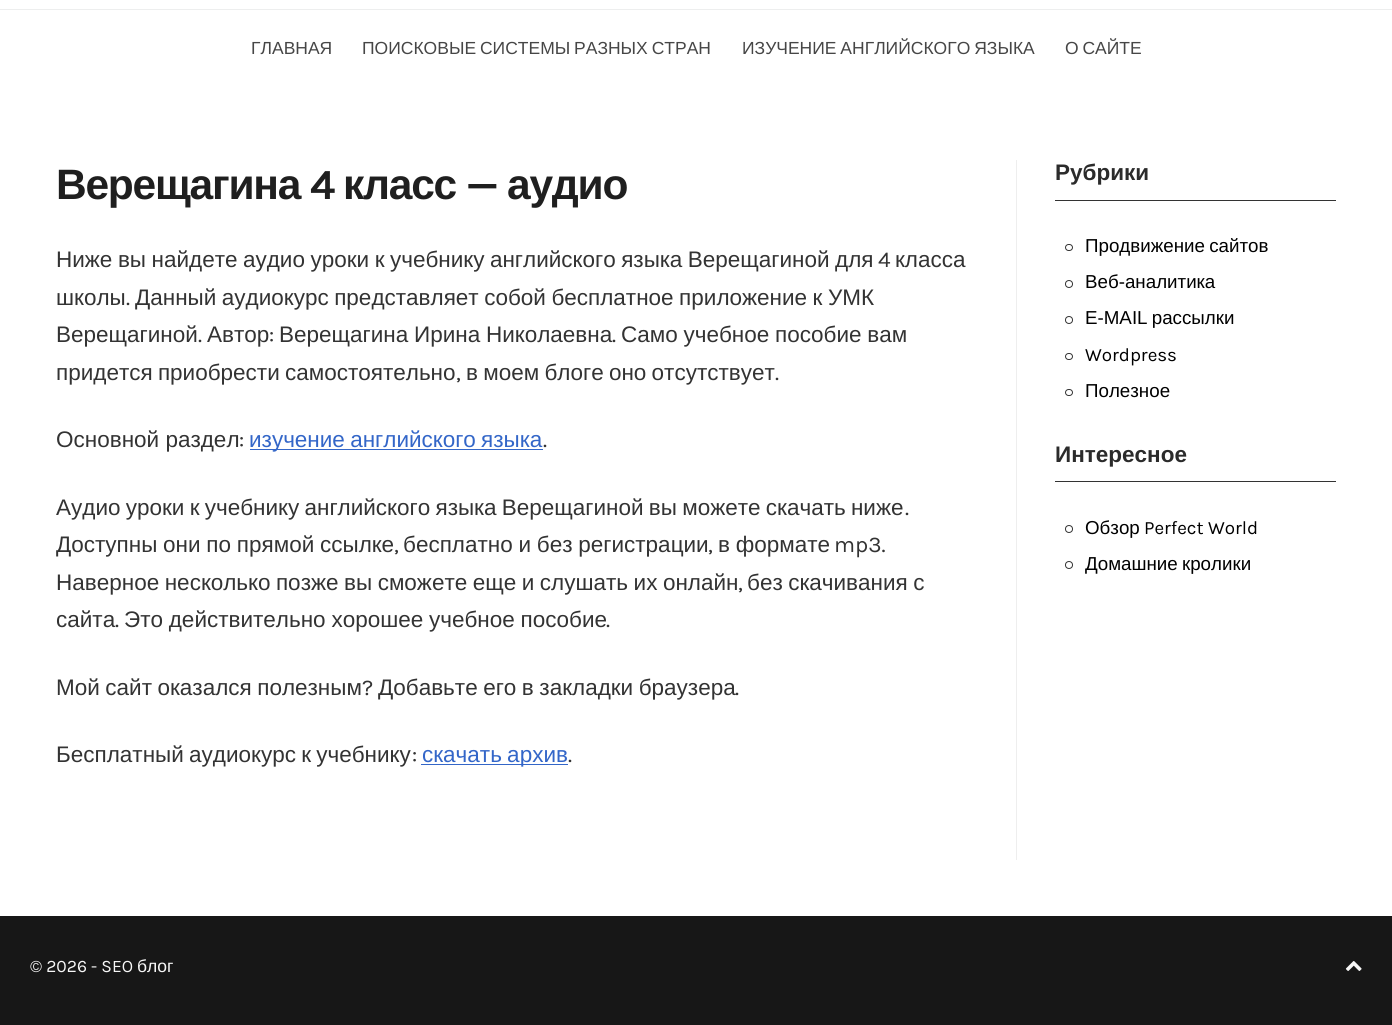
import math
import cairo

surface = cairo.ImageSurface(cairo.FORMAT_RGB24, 1392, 1025)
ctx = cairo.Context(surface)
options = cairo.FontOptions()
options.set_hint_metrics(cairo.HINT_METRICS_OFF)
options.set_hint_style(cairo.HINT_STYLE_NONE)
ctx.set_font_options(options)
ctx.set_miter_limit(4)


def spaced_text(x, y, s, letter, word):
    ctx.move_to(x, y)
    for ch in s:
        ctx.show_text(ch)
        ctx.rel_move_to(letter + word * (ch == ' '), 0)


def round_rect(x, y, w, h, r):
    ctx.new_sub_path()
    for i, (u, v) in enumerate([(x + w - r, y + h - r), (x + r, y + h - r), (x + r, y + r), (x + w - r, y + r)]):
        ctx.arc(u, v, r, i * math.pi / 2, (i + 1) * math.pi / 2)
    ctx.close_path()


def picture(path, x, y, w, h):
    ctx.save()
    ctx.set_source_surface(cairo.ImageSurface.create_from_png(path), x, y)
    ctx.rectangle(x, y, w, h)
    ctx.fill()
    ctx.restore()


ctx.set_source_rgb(1, 1, 1)
ctx.paint()
ctx.set_source_rgb(0.929, 0.933, 0.933)
ctx.rectangle(0, 9, 1392, 1)
ctx.fill()
ctx.select_font_face("Liberation Sans")
ctx.set_font_size(17.5)
ctx.set_source_rgb(0.275, 0.275, 0.275)
ctx.move_to(251, 54)
ctx.show_text("ГЛАВНАЯ")
spaced_text(362, 54, "ПОИСКОВЫЕ СИСТЕМЫ РАЗНЫХ СТРАН", 0, -1)
spaced_text(742, 54, "ИЗУЧЕНИЕ АНГЛИЙСКОГО ЯЗЫКА", 0, -1)
spaced_text(1065, 54, "О САЙТЕ", 0, -1)
ctx.select_font_face("Liberation Sans", cairo.FONT_SLANT_NORMAL, cairo.FONT_WEIGHT_BOLD)
ctx.set_font_size(42.5)
ctx.set_source_rgb(0.122, 0.122, 0.122)
spaced_text(56, 199, "Верещагина", -1.25, 0)
ctx.select_font_face("Karla", cairo.FONT_SLANT_NORMAL, cairo.FONT_WEIGHT_BOLD)
spaced_text(310, 199, "4", -1.25, 0)
ctx.select_font_face("Liberation Sans", cairo.FONT_SLANT_NORMAL, cairo.FONT_WEIGHT_BOLD)
spaced_text(343, 199, "класс", -1.25, 0)
ctx.select_font_face("Karla", cairo.FONT_SLANT_NORMAL, cairo.FONT_WEIGHT_BOLD)
spaced_text(466, 199, "—", -1.25, 0)
ctx.select_font_face("Liberation Sans", cairo.FONT_SLANT_NORMAL, cairo.FONT_WEIGHT_BOLD)
spaced_text(507, 199, "аудио", -1.25, 0)
ctx.select_font_face("Liberation Sans")
ctx.set_font_size(22.5)
ctx.set_source_rgb(0.2, 0.2, 0.2)
spaced_text(56, 267, "Ниже вы найдете аудио уроки к учебнику английского языка Верещагиной для", 0, -0.75)
ctx.select_font_face("Karla")
ctx.move_to(878, 267)
ctx.show_text("4")
ctx.select_font_face("Liberation Sans")
ctx.move_to(895, 267)
ctx.show_text("класса")
ctx.move_to(56, 305)
ctx.show_text("школы")
ctx.select_font_face("Karla")
ctx.move_to(126, 305)
ctx.show_text(".")
ctx.select_font_face("Liberation Sans")
spaced_text(135, 305, "Данный аудиокурс представляет собой бесплатное приложение к УМК", 0, -0.75)
ctx.move_to(56, 342)
ctx.show_text("Верещагиной")
ctx.select_font_face("Karla")
ctx.move_to(198, 342)
ctx.show_text(".")
ctx.select_font_face("Liberation Sans")
ctx.move_to(207, 342)
ctx.show_text("Автор")
ctx.select_font_face("Karla")
ctx.move_to(269, 342)
ctx.show_text(":")
ctx.select_font_face("Liberation Sans")
spaced_text(279, 342, "Верещагина Ирина Николаевна", 0, -0.5)
ctx.select_font_face("Karla")
ctx.move_to(612, 342)
ctx.show_text(".")
ctx.select_font_face("Liberation Sans")
spaced_text(621, 342, "Само учебное пособие вам", 0, -0.5)
spaced_text(56, 380, "придется приобрести самостоятельно", 0, -1)
ctx.select_font_face("Karla")
ctx.move_to(456, 380)
ctx.show_text(",")
ctx.select_font_face("Liberation Sans")
spaced_text(466, 380, "в моем блоге оно отсутствует", 0, -1)
ctx.select_font_face("Karla")
ctx.move_to(775, 380)
ctx.show_text(".")
ctx.select_font_face("Liberation Sans")
ctx.move_to(56, 447)
ctx.show_text("Основной раздел")
ctx.select_font_face("Karla")
ctx.move_to(239, 447)
ctx.show_text(":")
ctx.set_source_rgb(0.2, 0.4, 0.784)
ctx.rectangle(250, 449, 293, 1)
ctx.fill()
ctx.select_font_face("Liberation Sans")
spaced_text(249, 447, "изучение английского языка", 0, -1)
ctx.select_font_face("Karla")
ctx.set_source_rgb(0.2, 0.2, 0.2)
ctx.move_to(543, 447)
ctx.show_text(".")
ctx.select_font_face("Liberation Sans")
spaced_text(56, 515, "Аудио уроки к учебнику английского языка Верещагиной вы можете скачать ниже", 0, -1)
ctx.select_font_face("Karla")
ctx.move_to(905, 515)
ctx.show_text(".")
ctx.select_font_face("Liberation Sans")
spaced_text(56, 552, "Доступны они по прямой ссылке", 0, -0.5)
ctx.select_font_face("Karla")
ctx.move_to(394, 552)
ctx.show_text(",")
ctx.select_font_face("Liberation Sans")
spaced_text(403, 552, "бесплатно и без регистрации", 0, -0.5)
ctx.select_font_face("Karla")
ctx.move_to(708, 552)
ctx.show_text(",")
ctx.select_font_face("Liberation Sans")
spaced_text(718, 552, "в формате", 0, -0.5)
ctx.select_font_face("Karla")
ctx.move_to(834, 552)
ctx.show_text("mp3.")
ctx.select_font_face("Liberation Sans")
spaced_text(56, 590, "Наверное несколько позже вы сможете еще и слушать их онлайн", 0, -0.75)
ctx.select_font_face("Karla")
ctx.move_to(738, 590)
ctx.show_text(",")
ctx.select_font_face("Liberation Sans")
spaced_text(747, 590, "без скачивания с", 0, -0.75)
ctx.move_to(56, 627)
ctx.show_text("сайта")
ctx.select_font_face("Karla")
ctx.move_to(115, 627)
ctx.show_text(".")
ctx.select_font_face("Liberation Sans")
spaced_text(124, 627, "Это действительно хорошее учебное пособие", 0, -0.5)
ctx.select_font_face("Karla")
ctx.move_to(606, 627)
ctx.show_text(".")
ctx.select_font_face("Liberation Sans")
spaced_text(56, 695, "Мой сайт оказался полезным", 0, -0.75)
ctx.select_font_face("Karla")
ctx.move_to(362, 695)
ctx.show_text("?")
ctx.select_font_face("Liberation Sans")
spaced_text(378, 695, "Добавьте его в закладки браузера", 0, -0.75)
ctx.select_font_face("Karla")
ctx.move_to(735, 695)
ctx.show_text(".")
ctx.select_font_face("Liberation Sans")
spaced_text(56, 762, "Бесплатный аудиокурс к учебнику", 0, -1)
ctx.select_font_face("Karla")
ctx.move_to(412, 762)
ctx.show_text(":")
ctx.set_source_rgb(0.2, 0.4, 0.784)
ctx.rectangle(421, 764, 147, 1)
ctx.fill()
ctx.select_font_face("Liberation Sans")
spaced_text(422, 762, "скачать архив", 0, -1)
ctx.select_font_face("Karla")
ctx.set_source_rgb(0.2, 0.2, 0.2)
ctx.move_to(568, 762)
ctx.show_text(".")
ctx.set_source_rgb(0.933, 0.933, 0.933)
ctx.rectangle(1016, 160, 1, 700)
ctx.fill()
ctx.set_source_rgb(0.2, 0.2, 0.2)
ctx.rectangle(1055, 200, 281, 1)
ctx.fill()
ctx.select_font_face("Liberation Sans", cairo.FONT_SLANT_NORMAL, cairo.FONT_WEIGHT_BOLD)
ctx.set_source_rgb(0.169, 0.169, 0.169)
ctx.move_to(1055, 180)
ctx.show_text("Рубрики")
round_rect(1065.5, 244.5, 7, 6, 3)
ctx.set_source_rgb(0.2, 0.2, 0.2)
ctx.set_line_width(1)
ctx.stroke()
ctx.select_font_face("Liberation Sans")
ctx.set_font_size(18.75)
ctx.set_source_rgb(0, 0, 0)
spaced_text(1085, 252, "Продвижение сайтов", 0, -1)
ctx.new_path()
ctx.arc(1069, 284, 3.5, 0, 2 * math.pi)
ctx.set_source_rgb(0.2, 0.2, 0.2)
ctx.stroke()
ctx.set_source_rgb(0, 0, 0)
ctx.move_to(1085, 288)
ctx.show_text("Веб-аналитика")
ctx.new_path()
ctx.arc(1069, 320, 3.5, 0, 2 * math.pi)
ctx.set_source_rgb(0.2, 0.2, 0.2)
ctx.stroke()
ctx.set_source_rgb(0, 0, 0)
spaced_text(1085, 324, "E-MAIL рассылки", 0, -1)
round_rect(1065.5, 353.5, 7, 6, 3)
ctx.set_source_rgb(0.2, 0.2, 0.2)
ctx.stroke()
ctx.select_font_face("Karla")
ctx.set_source_rgb(0, 0, 0)
ctx.move_to(1085, 361)
ctx.show_text("Wordpress")
round_rect(1065.5, 389.5, 7, 6, 3)
ctx.set_source_rgb(0.2, 0.2, 0.2)
ctx.stroke()
ctx.select_font_face("Liberation Sans")
ctx.set_source_rgb(0, 0, 0)
ctx.move_to(1085, 397)
ctx.show_text("Полезное")
ctx.set_source_rgb(0.2, 0.2, 0.2)
ctx.rectangle(1055, 481, 281, 1)
ctx.fill()
ctx.select_font_face("Liberation Sans", cairo.FONT_SLANT_NORMAL, cairo.FONT_WEIGHT_BOLD)
ctx.set_font_size(22.5)
ctx.set_source_rgb(0.169, 0.169, 0.169)
ctx.move_to(1055, 462)
ctx.show_text("Интересное")
ctx.new_path()
ctx.arc(1069, 529, 3.5, 0, 2 * math.pi)
ctx.set_source_rgb(0.2, 0.2, 0.2)
ctx.stroke()
ctx.select_font_face("Liberation Sans")
ctx.set_font_size(18.75)
ctx.set_source_rgb(0, 0, 0)
ctx.move_to(1085, 534)
ctx.show_text("Обзор")
ctx.select_font_face("Karla")
ctx.move_to(1144, 534)
ctx.show_text("Perfect World")
ctx.new_path()
ctx.arc(1069, 565, 3.5, 0, 2 * math.pi)
ctx.set_source_rgb(0.2, 0.2, 0.2)
ctx.stroke()
ctx.select_font_face("Liberation Sans")
ctx.set_source_rgb(0, 0, 0)
spaced_text(1085, 570, "Домашние кролики", 0, -1)
ctx.set_source_rgb(0.09, 0.09, 0.09)
ctx.rectangle(0, 916, 1392, 109)
ctx.fill()
ctx.select_font_face("Karla")
ctx.set_font_size(17.5)
ctx.set_source_rgb(0.965, 0.965, 0.965)
ctx.move_to(30, 972)
ctx.show_text("© 2026 - SEO")
ctx.select_font_face("Liberation Sans")
ctx.move_to(137, 972)
ctx.show_text("блог")
picture("img1.png", 1345, 961, 17, 10)
surface.write_to_png("page.png")
